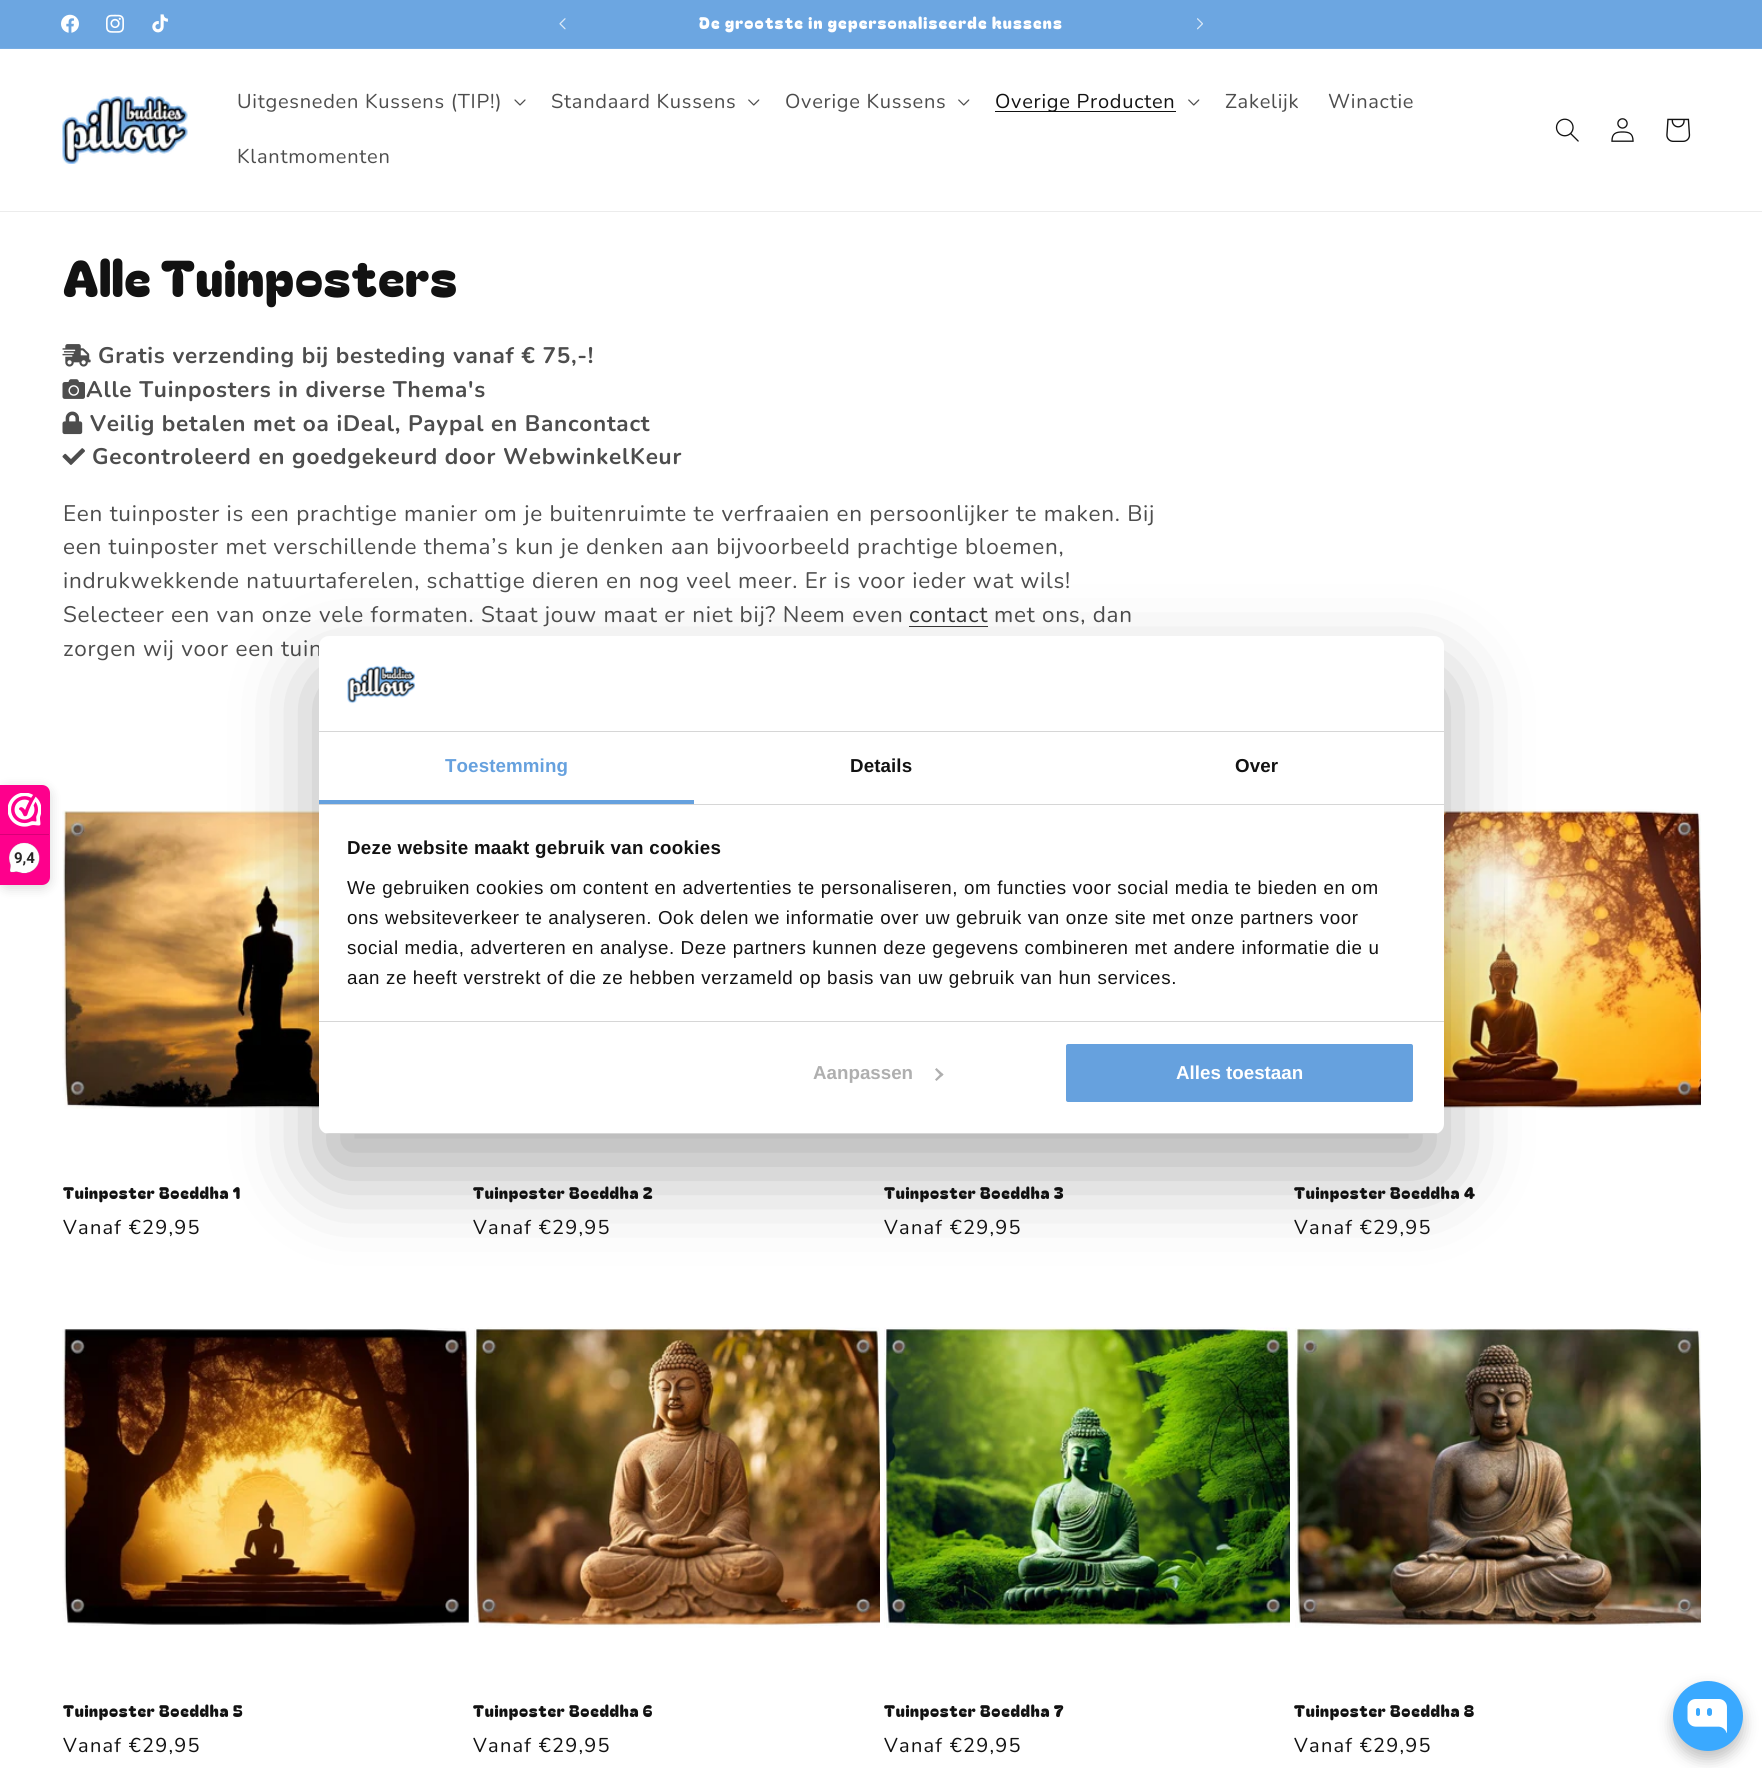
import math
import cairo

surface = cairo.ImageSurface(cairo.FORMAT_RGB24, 1762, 1768)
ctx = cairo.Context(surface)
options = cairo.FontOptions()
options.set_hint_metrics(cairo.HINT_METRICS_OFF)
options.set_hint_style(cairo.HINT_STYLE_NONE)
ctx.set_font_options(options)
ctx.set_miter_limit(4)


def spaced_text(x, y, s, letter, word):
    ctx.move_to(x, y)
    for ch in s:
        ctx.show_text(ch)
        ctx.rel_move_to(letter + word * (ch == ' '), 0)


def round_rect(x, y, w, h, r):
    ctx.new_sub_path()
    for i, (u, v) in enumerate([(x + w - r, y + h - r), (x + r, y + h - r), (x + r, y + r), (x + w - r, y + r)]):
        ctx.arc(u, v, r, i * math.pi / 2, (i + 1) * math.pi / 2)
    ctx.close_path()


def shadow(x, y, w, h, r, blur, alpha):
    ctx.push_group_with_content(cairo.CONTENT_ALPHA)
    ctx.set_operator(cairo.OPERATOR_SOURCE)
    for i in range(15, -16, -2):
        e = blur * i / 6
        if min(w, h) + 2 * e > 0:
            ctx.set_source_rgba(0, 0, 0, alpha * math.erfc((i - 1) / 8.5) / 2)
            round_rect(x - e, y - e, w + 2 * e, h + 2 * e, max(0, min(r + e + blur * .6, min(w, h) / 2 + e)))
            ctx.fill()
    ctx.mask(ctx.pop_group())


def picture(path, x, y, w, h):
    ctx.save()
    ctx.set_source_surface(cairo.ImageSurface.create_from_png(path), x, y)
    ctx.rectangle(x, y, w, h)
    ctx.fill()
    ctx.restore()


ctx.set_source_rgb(1, 1, 1)
ctx.paint()
ctx.set_source_rgb(0.424, 0.651, 0.882)
ctx.rectangle(0, 0, 1762, 48)
ctx.fill()
ctx.set_source_rgb(0.471, 0.678, 0.89)
ctx.rectangle(0, 48, 1762, 1)
ctx.fill()
picture("img1.png", 61, 14, 18, 19)
picture("img2.png", 106, 14, 18, 19)
picture("img3.png", 152, 14, 16, 19)
picture("img4.png", 559, 18, 7, 12)
ctx.select_font_face("Bagel Fat One")
ctx.set_font_size(16.25)
ctx.set_source_rgb(1, 1, 1)
spaced_text(699, 29, "De grootste in gepersonaliseerde kussens", 1.25, 0)
picture("img5.png", 1197, 18, 6, 12)
ctx.set_source_rgb(0.925, 0.925, 0.925)
ctx.rectangle(0, 211, 1762, 1)
ctx.fill()
picture("img6.png", 62, 96, 126, 68)
ctx.select_font_face("Nunito")
ctx.set_font_size(20)
ctx.set_source_rgb(0.302, 0.302, 0.302)
spaced_text(237, 108, "Uitgesneden Kussens (TIP!)", 0.75, 0)
picture("img7.png", 514, 99, 12, 7)
spaced_text(551, 108, "Standaard Kussens", 0.75, 0)
picture("img8.png", 748, 99, 12, 7)
spaced_text(785, 108, "Overige Kussens", 0.75, 0)
picture("img8.png", 958, 99, 12, 7)
ctx.set_source_rgb(0.071, 0.071, 0.071)
ctx.rectangle(995, 111, 181, 1)
ctx.fill()
spaced_text(995, 108, "Overige Producten", 0.75, 0)
picture("img8.png", 1188, 99, 12, 7)
ctx.set_source_rgb(0.302, 0.302, 0.302)
spaced_text(1225, 108, "Zakelijk", 0.75, 0)
spaced_text(1328, 108, "Winactie", 0.75, 0)
spaced_text(237, 163, "Klantmomenten", 0.75, 0)
picture("img9.png", 1555, 118, 24, 24)
picture("img10.png", 1611, 118, 23, 24)
picture("img11.png", 1666, 118, 25, 24)
ctx.select_font_face("Bagel Fat One")
ctx.set_font_size(50)
ctx.set_source_rgb(0.071, 0.071, 0.071)
spaced_text(63, 297, "Alle Tuinposters", 0.75, 0)
picture("img12.png", 62, 344, 29, 23)
ctx.select_font_face("Nunito", cairo.FONT_SLANT_NORMAL, cairo.FONT_WEIGHT_BOLD)
ctx.set_font_size(22.5)
ctx.set_source_rgb(0.302, 0.302, 0.302)
spaced_text(98, 363, "Gratis verzending bij besteding vanaf € 75,-!", 0.75, 0)
picture("img13.png", 62, 379, 23, 20)
spaced_text(86, 397, "Alle Tuinposters in diverse Thema's", 0.75, 0)
picture("img14.png", 62, 411, 21, 24)
spaced_text(90, 431, "Veilig betalen met oa iDeal, Paypal en Bancontact", 0.75, 0)
picture("img15.png", 62, 448, 23, 17)
spaced_text(92, 464, "Gecontroleerd en goedgekeurd door WebwinkelKeur", 0.75, 0)
ctx.select_font_face("Nunito")
spaced_text(63, 521, "Een tuinposter is een prachtige manier om je buitenruimte te verfraaien en persoonlijker te maken. Bij", 0.75, 0)
spaced_text(63, 554, "een tuinposter met verschillende thema’s kun je denken aan bijvoorbeeld prachtige bloemen,", 0.75, 0)
spaced_text(63, 588, "indrukwekkende natuurtaferelen, schattige dieren en nog veel meer. Er is voor ieder wat wils!", 0.75, 0)
spaced_text(63, 622, "Selecteer een van onze vele formaten. Staat jouw maat er niet bij? Neem even", 0.75, 0)
ctx.set_source_rgb(0.212, 0.212, 0.212)
spaced_text(909, 622, "contact", 0.75, 0)
ctx.rectangle(909, 626, 79, 1)
ctx.fill()
ctx.set_source_rgb(0.302, 0.302, 0.302)
spaced_text(994, 622, "met ons, dan", 0.75, 0)
spaced_text(63, 656, "zorgen wij voor een tuin", 0.75, 0)
picture("img16.png", 62, 810, 257, 299)
ctx.select_font_face("Bagel Fat One")
ctx.set_font_size(16.25)
ctx.set_source_rgb(0.071, 0.071, 0.071)
spaced_text(63, 1199, "Tuinposter Boeddha 1", 0.75, 0)
ctx.select_font_face("Nunito")
ctx.set_font_size(20)
spaced_text(63, 1234, "Vanaf €29,95", 1.25, 0)
ctx.select_font_face("Bagel Fat One")
ctx.set_font_size(16.25)
spaced_text(473, 1199, "Tuinposter Boeddha 2", 0.75, 0)
ctx.select_font_face("Nunito")
ctx.set_font_size(20)
spaced_text(473, 1234, "Vanaf €29,95", 1.25, 0)
ctx.select_font_face("Bagel Fat One")
ctx.set_font_size(16.25)
spaced_text(884, 1199, "Tuinposter Boeddha 3", 0.75, 0)
ctx.select_font_face("Nunito")
ctx.set_font_size(20)
spaced_text(884, 1234, "Vanaf €29,95", 1.25, 0)
picture("img17.png", 1444, 809, 257, 301)
ctx.select_font_face("Bagel Fat One")
ctx.set_font_size(16.25)
spaced_text(1294, 1199, "Tuinposter Boeddha 4", 0.75, 0)
ctx.select_font_face("Nunito")
ctx.set_font_size(20)
spaced_text(1294, 1234, "Vanaf €29,95", 1.25, 0)
picture("img18.png", 62, 1328, 407, 298)
ctx.select_font_face("Bagel Fat One")
ctx.set_font_size(16.25)
spaced_text(63, 1717, "Tuinposter Boeddha 5", 0.75, 0)
ctx.select_font_face("Nunito")
ctx.set_font_size(20)
spaced_text(63, 1752, "Vanaf €29,95", 1.25, 0)
picture("img19.png", 474, 1327, 406, 301)
ctx.select_font_face("Bagel Fat One")
ctx.set_font_size(16.25)
spaced_text(473, 1717, "Tuinposter Boeddha 6", 0.75, 0)
ctx.select_font_face("Nunito")
ctx.set_font_size(20)
spaced_text(473, 1752, "Vanaf €29,95", 1.25, 0)
picture("img20.png", 884, 1327, 406, 301)
ctx.select_font_face("Bagel Fat One")
ctx.set_font_size(16.25)
spaced_text(884, 1717, "Tuinposter Boeddha 7", 0.75, 0)
ctx.select_font_face("Nunito")
ctx.set_font_size(20)
spaced_text(884, 1752, "Vanaf €29,95", 1.25, 0)
picture("img21.png", 1295, 1328, 406, 300)
ctx.select_font_face("Bagel Fat One")
ctx.set_font_size(16.25)
spaced_text(1294, 1717, "Tuinposter Boeddha 8", 0.75, 0)
ctx.select_font_face("Nunito")
ctx.set_font_size(20)
spaced_text(1294, 1752, "Vanaf €29,95", 1.25, 0)
ctx.set_source_rgb(0, 0, 0)
shadow(0, 788, 50, 100, 8, 6, 0.15)
ctx.set_source_rgb(0.996, 0, 0.549)
ctx.new_path()
ctx.move_to(0, 785)
ctx.line_to(42, 785)
ctx.curve_to(46.5, 785, 50, 788.5, 50, 793)
ctx.line_to(50, 877)
ctx.curve_to(50, 881.5, 46.5, 885, 42, 885)
ctx.line_to(0, 885)
ctx.close_path()
ctx.fill()
picture("img22.png", 8, 793, 33, 34)
ctx.set_source_rgb(0.847, 0, 0.467)
ctx.rectangle(0, 834, 49, 1)
ctx.fill()
picture("img23.png", 9, 842, 31, 32)
ctx.select_font_face("Roboto", cairo.FONT_SLANT_NORMAL, cairo.FONT_WEIGHT_BOLD)
ctx.set_font_size(15)
ctx.set_source_rgb(0.153, 0.149, 0.149)
ctx.move_to(14, 863)
ctx.show_text("9,4")
ctx.set_source_rgb(0, 0, 0)
shadow(319, 676, 1125, 498, 10, 42.5, 0.3)
ctx.set_source_rgb(1, 1, 1)
round_rect(319, 636, 1125, 498, 10)
ctx.fill()
ctx.set_source_rgb(0.839, 0.839, 0.839)
ctx.rectangle(319, 731, 1125, 1)
ctx.fill()
picture("img24.png", 347, 665, 68, 39)
ctx.rectangle(319, 804, 1125, 1)
ctx.fill()
ctx.set_source_rgb(0.4, 0.631, 0.871)
ctx.rectangle(319, 800, 375, 4)
ctx.fill()
ctx.select_font_face("Liberation Sans", cairo.FONT_SLANT_NORMAL, cairo.FONT_WEIGHT_BOLD)
ctx.set_font_size(18.75)
spaced_text(445, 772, "Toestemming", 0.1, 0)
ctx.set_source_rgb(0.071, 0.071, 0.071)
spaced_text(850, 772, "Details", 0.1, 0)
spaced_text(1235, 772, "Over", 0.1, 0)
ctx.set_source_rgb(0.839, 0.839, 0.839)
ctx.rectangle(319, 1021, 1125, 1)
ctx.fill()
ctx.set_source_rgb(0.071, 0.071, 0.071)
spaced_text(347, 854, "Deze website maakt gebruik van cookies", 0.3, 0)
ctx.select_font_face("Liberation Sans")
spaced_text(347, 894, "We gebruiken cookies om content en advertenties te personaliseren, om functies voor social media te bieden en om", 0.62, 0)
spaced_text(347, 924, "ons websiteverkeer te analyseren. Ook delen we informatie over uw gebruik van onze site met onze partners voor", 0.62, 0)
spaced_text(347, 954, "social media, adverteren en analyse. Deze partners kunnen deze gegevens combineren met andere informatie die u", 0.62, 0)
spaced_text(347, 984, "aan ze heeft verstrekt of die ze hebben verzameld op basis van uw gebruik van hun services.", 0.62, 0)
ctx.save()
round_rect(319, 636, 1125, 498, 10)
ctx.clip()
ctx.set_source_rgb(0.839, 0.839, 0.839)
ctx.rectangle(319, 1133, 1125, 1)
ctx.fill()
ctx.restore()
ctx.select_font_face("Liberation Sans", cairo.FONT_SLANT_NORMAL, cairo.FONT_WEIGHT_BOLD)
ctx.set_source_rgb(0.686, 0.686, 0.686)
ctx.move_to(813, 1079)
ctx.show_text("Aanpassen")
ctx.new_path()
ctx.move_to(936.5, 1068)
ctx.line_to(943.5, 1074.5)
ctx.line_to(941.5, 1076.5)
ctx.line_to(935, 1069.5)
ctx.close_path()
ctx.fill()
ctx.new_path()
ctx.move_to(941.5, 1073)
ctx.line_to(943.5, 1074.5)
ctx.line_to(936.5, 1081)
ctx.line_to(935, 1079.5)
ctx.close_path()
ctx.fill()
ctx.set_source_rgb(0.4, 0.631, 0.871)
round_rect(1064.5, 1042.5, 350, 61, 3.5)
ctx.fill_preserve()
ctx.set_source_rgb(1, 1, 1)
ctx.set_line_width(3)
ctx.stroke()
ctx.move_to(1176, 1079)
ctx.show_text("Alles toestaan")
ctx.set_source_rgb(0, 0, 0)
shadow(1673, 1689, 70, 70, 35, 7.5, 0.25)
ctx.set_source_rgb(0.227, 0.663, 1)
ctx.arc(1708, 1716, 35, 0, 2 * math.pi)
ctx.fill()
picture("img25.png", 1687, 1699, 40, 34)
surface.write_to_png("page.png")
